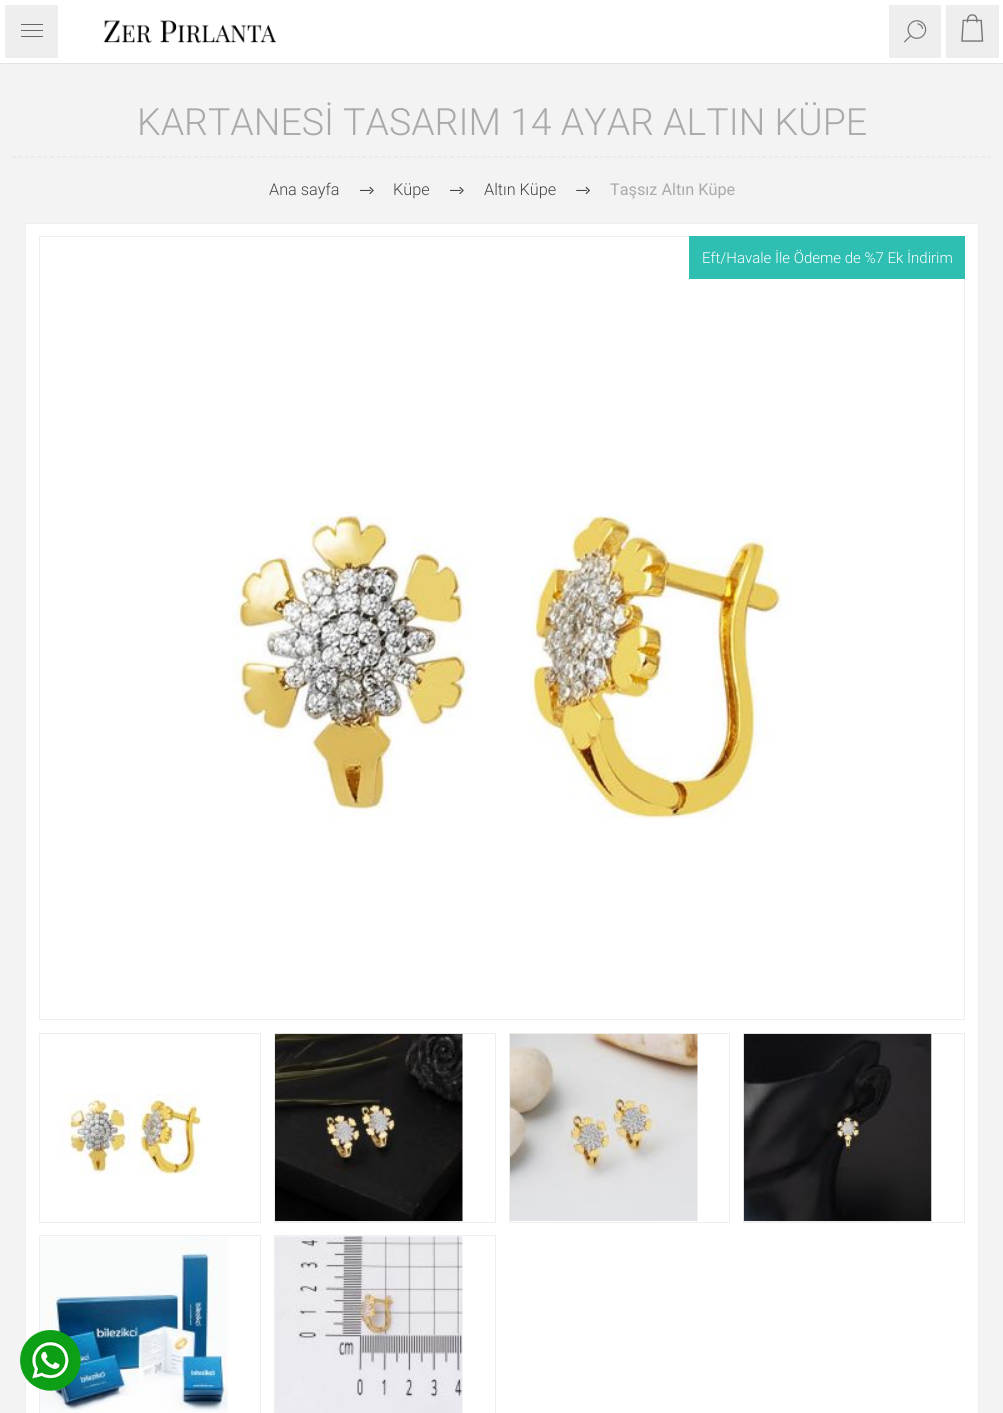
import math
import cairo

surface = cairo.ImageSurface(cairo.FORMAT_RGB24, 1003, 1413)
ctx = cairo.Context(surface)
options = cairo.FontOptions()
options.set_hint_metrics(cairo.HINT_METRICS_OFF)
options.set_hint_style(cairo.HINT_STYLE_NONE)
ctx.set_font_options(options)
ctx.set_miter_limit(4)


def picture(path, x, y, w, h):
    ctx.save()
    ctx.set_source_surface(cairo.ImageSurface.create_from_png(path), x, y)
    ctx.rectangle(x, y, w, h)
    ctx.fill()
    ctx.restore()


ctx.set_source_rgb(0.953, 0.953, 0.953)
ctx.paint()
ctx.set_source_rgb(0.89, 0.89, 0.89)
ctx.new_path()
ctx.move_to(0, 62)
ctx.line_to(0, 64)
ctx.line_to(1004, 64)
ctx.line_to(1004, 1)
ctx.line_to(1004, 62)
ctx.close_path()
ctx.fill()
ctx.set_source_rgb(1, 1, 1)
ctx.rectangle(63, 0, 878, 63)
ctx.fill()
picture("img1.png", 103, 20, 173, 24)
ctx.set_source_rgb(0.933, 0.933, 0.933)
ctx.rectangle(889, 5, 52, 53)
ctx.fill()
picture("img2.png", 903, 20, 24, 23)
ctx.rectangle(2.5, 2.5, 58, 58)
ctx.fill_preserve()
ctx.set_source_rgb(1, 1, 1)
ctx.set_line_width(5)
ctx.stroke()
ctx.set_source_rgb(0.4, 0.4, 0.4)
ctx.rectangle(21, 24, 22, 1)
ctx.fill()
ctx.rectangle(21, 30, 22, 1)
ctx.fill()
ctx.rectangle(21, 36, 22, 1)
ctx.fill()
ctx.set_source_rgb(0.933, 0.933, 0.933)
ctx.rectangle(943.5, 2.5, 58, 58)
ctx.fill_preserve()
ctx.set_source_rgb(1, 1, 1)
ctx.stroke()
picture("img3.png", 961, 14, 23, 28)
ctx.new_path()
ctx.move_to(12.5, 157)
ctx.line_to(991, 157)
ctx.set_source_rgb(0.902, 0.902, 0.902)
ctx.set_line_width(1.2)
ctx.set_dash([3.75, 2.5])
ctx.stroke()
ctx.select_font_face("Roboto Light")
ctx.set_font_size(37.5)
ctx.set_source_rgb(0.667, 0.667, 0.667)
ctx.move_to(137, 135)
ctx.show_text("KARTANESİ TASARIM 14 AYAR ALTIN KÜPE")
ctx.set_font_size(16.25)
ctx.set_source_rgb(0.267, 0.267, 0.267)
ctx.move_to(269, 195)
ctx.show_text("Ana sayfa")
picture("img4.png", 360, 186, 14, 9)
ctx.move_to(393, 195)
ctx.show_text("Küpe")
picture("img4.png", 450, 186, 14, 9)
ctx.move_to(484, 195)
ctx.show_text("Altın Küpe")
picture("img5.png", 576, 186, 15, 9)
ctx.select_font_face("Roboto")
ctx.set_source_rgb(0.667, 0.667, 0.667)
ctx.move_to(610, 195)
ctx.show_text("Taşsız Altın Küpe")
ctx.set_source_rgb(1, 1, 1)
ctx.rectangle(25.5, 223.5, 953, 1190)
ctx.fill_preserve()
ctx.set_source_rgb(0.933, 0.933, 0.933)
ctx.set_line_width(1)
ctx.set_dash([])
ctx.stroke()
ctx.rectangle(39.5, 236.5, 925, 783)
ctx.stroke()
picture("img6.png", 231, 512, 556, 307)
ctx.set_source_rgb(0.18, 0.749, 0.698)
ctx.rectangle(689, 236, 276, 43)
ctx.fill()
ctx.select_font_face("Roboto Light")
ctx.set_font_size(15)
ctx.set_source_rgb(1, 1, 1)
ctx.move_to(702, 263)
ctx.show_text("Eft/Havale İle Ödeme de %7 Ek İndirim")
ctx.rectangle(39.5, 1033.5, 221, 189)
ctx.set_source_rgb(0.933, 0.933, 0.933)
ctx.stroke()
picture("img7.png", 60, 1093, 142, 82)
ctx.rectangle(274.5, 1033.5, 221, 189)
ctx.stroke()
picture("img8.png", 275, 1033, 188, 189)
ctx.rectangle(509.5, 1033.5, 220, 189)
ctx.stroke()
picture("img9.png", 510, 1033, 188, 188)
ctx.rectangle(743.5, 1033.5, 221, 189)
ctx.stroke()
picture("img10.png", 743, 1033, 189, 189)
ctx.rectangle(39.5, 1235.5, 221, 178)
ctx.stroke()
picture("img11.png", 40, 1236, 188, 177)
ctx.rectangle(274.5, 1235.5, 221, 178)
ctx.stroke()
picture("img12.png", 275, 1236, 188, 177)
picture("img13.png", 20, 1330, 61, 61)
surface.write_to_png("page.png")
